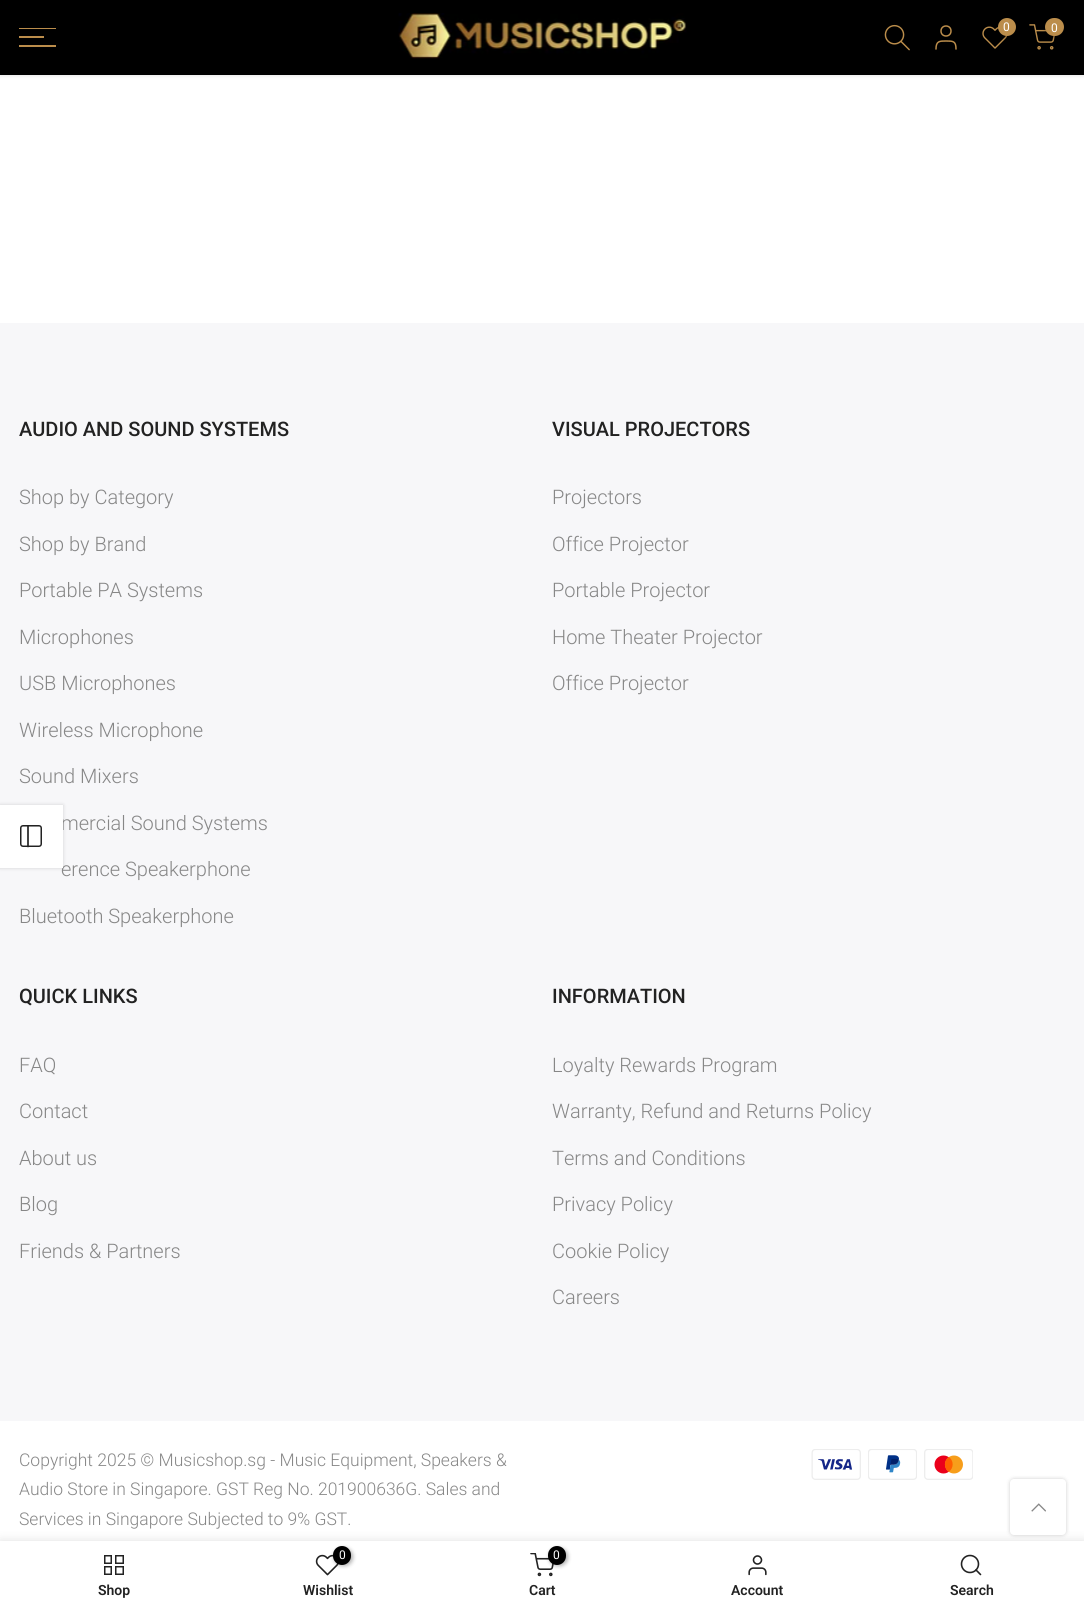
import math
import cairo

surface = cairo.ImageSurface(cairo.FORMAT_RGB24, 1084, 1609)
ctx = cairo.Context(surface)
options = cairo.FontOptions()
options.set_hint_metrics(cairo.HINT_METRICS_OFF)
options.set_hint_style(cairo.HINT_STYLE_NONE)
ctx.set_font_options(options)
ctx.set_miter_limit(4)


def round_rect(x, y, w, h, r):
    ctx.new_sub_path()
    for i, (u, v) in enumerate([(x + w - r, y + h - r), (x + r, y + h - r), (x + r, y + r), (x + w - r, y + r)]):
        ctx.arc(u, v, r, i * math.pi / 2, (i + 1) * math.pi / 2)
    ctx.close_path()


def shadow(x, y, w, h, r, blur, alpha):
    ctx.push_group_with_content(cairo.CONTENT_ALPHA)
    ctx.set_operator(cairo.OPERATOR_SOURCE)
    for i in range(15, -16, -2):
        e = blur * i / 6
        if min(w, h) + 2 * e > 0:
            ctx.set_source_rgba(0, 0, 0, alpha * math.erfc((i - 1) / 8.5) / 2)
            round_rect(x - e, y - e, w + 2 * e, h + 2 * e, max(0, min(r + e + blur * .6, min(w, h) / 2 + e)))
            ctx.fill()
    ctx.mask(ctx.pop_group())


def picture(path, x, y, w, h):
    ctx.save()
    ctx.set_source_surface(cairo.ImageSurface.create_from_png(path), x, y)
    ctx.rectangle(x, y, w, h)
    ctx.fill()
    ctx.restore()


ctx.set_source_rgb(1, 1, 1)
ctx.paint()
ctx.set_source_rgb(0, 0, 0)
shadow(0, 1, 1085, 75, 0, 2, 0.1)
ctx.set_source_rgb(0, 0, 0)
ctx.rectangle(0, 0, 1084, 75)
ctx.fill()
ctx.set_source_rgb(0.733, 0.553, 0.294)
ctx.rectangle(19, 28, 37, 1)
ctx.fill()
ctx.rectangle(19, 36, 25, 2)
ctx.fill()
ctx.rectangle(19, 45, 37, 2)
ctx.fill()
picture("img1.png", 398, 13, 289, 46)
picture("img2.png", 884, 24, 26, 27)
ctx.arc(946, 31, 5, 0, 2 * math.pi)
ctx.set_line_width(1.5)
ctx.stroke()
ctx.new_path()
ctx.move_to(956, 49)
ctx.curve_to(956, 41, 953, 41, 946, 41)
ctx.curve_to(939.5, 41, 936, 41, 936, 49)
ctx.set_line_cap(cairo.LINE_CAP_ROUND)
ctx.set_line_join(cairo.LINE_JOIN_ROUND)
ctx.stroke()
picture("img3.png", 982, 26, 26, 23)
ctx.set_source_rgb(0, 0, 0)
shadow(999, 19, 19, 19, 9.5, 2, 0.3)
ctx.set_source_rgb(0.733, 0.553, 0.294)
ctx.arc(1007, 27, 9, 0, 2 * math.pi)
ctx.fill()
ctx.select_font_face("Roboto")
ctx.set_font_size(12)
ctx.set_source_rgb(1, 1, 1)
ctx.move_to(1003, 31)
ctx.show_text("0")
picture("img4.png", 1029, 24, 26, 26)
ctx.set_source_rgb(0, 0, 0)
shadow(1046, 19, 19, 19, 9.5, 2, 0.3)
ctx.set_source_rgb(0.733, 0.553, 0.294)
round_rect(1045, 18, 19, 18, 9)
ctx.fill()
ctx.set_source_rgb(1, 1, 1)
ctx.move_to(1051, 32)
ctx.show_text("0")
ctx.set_source_rgb(0.965, 0.965, 0.973)
ctx.rectangle(0, 323, 1084, 1098)
ctx.fill()
ctx.set_source_rgb(0, 0, 0)
shadow(0, 805, 63, 63, 0, 2, 0.15)
ctx.select_font_face("Roboto Light")
ctx.set_font_size(20)
ctx.set_source_rgb(0.529, 0.529, 0.529)
ctx.move_to(61, 830)
ctx.show_text("mercial Sound Systems")
ctx.move_to(61, 876)
ctx.show_text("erence Speakerphone")
ctx.set_source_rgb(1, 1, 1)
ctx.rectangle(0, 805, 63, 63)
ctx.fill()
round_rect(20.75, 825.75, 20.5, 20.5, 2.25)
ctx.set_source_rgb(0.133, 0.133, 0.133)
ctx.set_line_cap(cairo.LINE_CAP_BUTT)
ctx.set_line_join(cairo.LINE_JOIN_MITER)
ctx.stroke()
ctx.new_path()
ctx.move_to(28, 826)
ctx.line_to(28, 846.5)
ctx.set_line_width(1.7)
ctx.set_line_cap(cairo.LINE_CAP_ROUND)
ctx.set_line_join(cairo.LINE_JOIN_ROUND)
ctx.stroke()
ctx.select_font_face("Roboto Medium")
ctx.move_to(19, 436)
ctx.show_text("AUDIO AND SOUND SYSTEMS")
ctx.select_font_face("Roboto Light")
ctx.set_source_rgb(0.529, 0.529, 0.529)
ctx.move_to(19, 504)
ctx.show_text("Shop by Category")
ctx.move_to(19, 551)
ctx.show_text("Shop by Brand")
ctx.move_to(19, 597)
ctx.show_text("Portable PA Systems")
ctx.move_to(19, 644)
ctx.show_text("Microphones")
ctx.move_to(19, 690)
ctx.show_text("USB Microphones")
ctx.move_to(19, 737)
ctx.show_text("Wireless Microphone")
ctx.move_to(19, 783)
ctx.show_text("Sound Mixers")
ctx.move_to(19, 923)
ctx.show_text("Bluetooth Speakerphone")
ctx.select_font_face("Roboto Medium")
ctx.set_source_rgb(0.133, 0.133, 0.133)
ctx.move_to(552, 436)
ctx.show_text("VISUAL PROJECTORS")
ctx.select_font_face("Roboto Light")
ctx.set_source_rgb(0.529, 0.529, 0.529)
ctx.move_to(552, 504)
ctx.show_text("Projectors")
ctx.move_to(552, 551)
ctx.show_text("Office Projector")
ctx.move_to(552, 597)
ctx.show_text("Portable Projector")
ctx.move_to(552, 644)
ctx.show_text("Home Theater Projector")
ctx.move_to(552, 690)
ctx.show_text("Office Projector")
ctx.select_font_face("Roboto Medium")
ctx.set_source_rgb(0.133, 0.133, 0.133)
ctx.move_to(19, 1003)
ctx.show_text("QUICK LINKS")
ctx.select_font_face("Roboto Light")
ctx.set_source_rgb(0.529, 0.529, 0.529)
ctx.move_to(19, 1072)
ctx.show_text("FAQ")
ctx.move_to(19, 1118)
ctx.show_text("Contact")
ctx.move_to(19, 1165)
ctx.show_text("About us")
ctx.move_to(19, 1211)
ctx.show_text("Blog")
ctx.move_to(19, 1258)
ctx.show_text("Friends & Partners")
ctx.select_font_face("Roboto Medium")
ctx.set_source_rgb(0.133, 0.133, 0.133)
ctx.move_to(552, 1003)
ctx.show_text("INFORMATION")
ctx.select_font_face("Roboto Light")
ctx.set_source_rgb(0.529, 0.529, 0.529)
ctx.move_to(552, 1072)
ctx.show_text("Loyalty Rewards Program")
ctx.move_to(552, 1118)
ctx.show_text("Warranty, Refund and Returns Policy")
ctx.move_to(552, 1165)
ctx.show_text("Terms and Conditions")
ctx.move_to(552, 1211)
ctx.show_text("Privacy Policy")
ctx.move_to(552, 1258)
ctx.show_text("Cookie Policy")
ctx.move_to(552, 1304)
ctx.show_text("Careers")
ctx.set_font_size(17.5)
ctx.move_to(19, 1466)
ctx.show_text("Copyright 2025 © Musicshop.sg - Music Equipment, Speakers &")
ctx.move_to(19, 1495)
ctx.show_text("Audio Store in Singapore. GST Reg No. 201900636G. Sales and")
ctx.move_to(19, 1525)
ctx.show_text("Services in Singapore Subjected to 9% GST.")
picture("img5.png", 811, 1449, 50, 31)
picture("img6.png", 868, 1449, 49, 31)
picture("img7.png", 924, 1449, 49, 31)
ctx.set_source_rgb(0, 0, 0)
shadow(0, 1541, 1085, 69, 0, 5.5, 0.12)
ctx.set_source_rgb(1, 1, 1)
ctx.rectangle(0, 1541, 1084, 68)
ctx.fill()
ctx.set_source_rgb(0, 0, 0)
shadow(1010, 1479, 56, 56, 4, 2, 0.2)
ctx.set_source_rgb(1, 1, 1)
round_rect(1010, 1479, 56, 56, 4)
ctx.fill()
picture("img8.png", 1031, 1503, 15, 9)
ctx.rectangle(104.75, 1555.75, 6.5, 7.5)
ctx.set_source_rgb(0.133, 0.133, 0.133)
ctx.set_line_width(1.5)
ctx.set_line_cap(cairo.LINE_CAP_BUTT)
ctx.set_line_join(cairo.LINE_JOIN_MITER)
ctx.stroke()
ctx.rectangle(115.75, 1555.75, 7.5, 7.5)
ctx.stroke()
ctx.rectangle(104.75, 1566.75, 6.5, 7.5)
ctx.stroke()
ctx.rectangle(115.75, 1566.75, 7.5, 7.5)
ctx.stroke()
ctx.select_font_face("Roboto SemiBold")
ctx.set_font_size(14)
ctx.move_to(98, 1595)
ctx.show_text("Shop")
picture("img9.png", 315, 1554, 24, 22)
ctx.set_source_rgb(0, 0, 0)
shadow(334, 1548, 19, 18, 9, 2, 0.3)
ctx.set_source_rgb(0, 0, 0)
round_rect(333, 1546, 18, 19, 9)
ctx.fill()
ctx.select_font_face("Roboto")
ctx.set_font_size(12)
ctx.set_source_rgb(1, 1, 1)
ctx.move_to(339, 1559)
ctx.show_text("0")
ctx.select_font_face("Roboto SemiBold")
ctx.set_font_size(14)
ctx.set_source_rgb(0.133, 0.133, 0.133)
ctx.move_to(303, 1595)
ctx.show_text("Wishlist")
picture("img10.png", 530, 1553, 24, 24)
ctx.set_source_rgb(0, 0, 0)
shadow(549, 1548, 19, 18, 9, 2, 0.3)
ctx.set_source_rgb(0, 0, 0)
round_rect(548, 1546, 18, 19, 9)
ctx.fill()
ctx.select_font_face("Roboto")
ctx.set_font_size(12)
ctx.set_source_rgb(1, 1, 1)
ctx.move_to(553, 1559)
ctx.show_text("0")
ctx.select_font_face("Roboto SemiBold")
ctx.set_font_size(14)
ctx.set_source_rgb(0.133, 0.133, 0.133)
ctx.move_to(529, 1595)
ctx.show_text("Cart")
picture("img11.png", 748, 1555, 19, 21)
ctx.move_to(731, 1595)
ctx.show_text("Account")
ctx.new_path()
ctx.arc(970, 1564, 8.5, 0, 2 * math.pi)
ctx.set_line_width(1.6)
ctx.stroke()
ctx.new_path()
ctx.move_to(980.5, 1574.5)
ctx.line_to(976, 1570)
ctx.set_line_cap(cairo.LINE_CAP_ROUND)
ctx.set_line_join(cairo.LINE_JOIN_ROUND)
ctx.stroke()
ctx.move_to(950, 1595)
ctx.show_text("Search")
surface.write_to_png("page.png")
